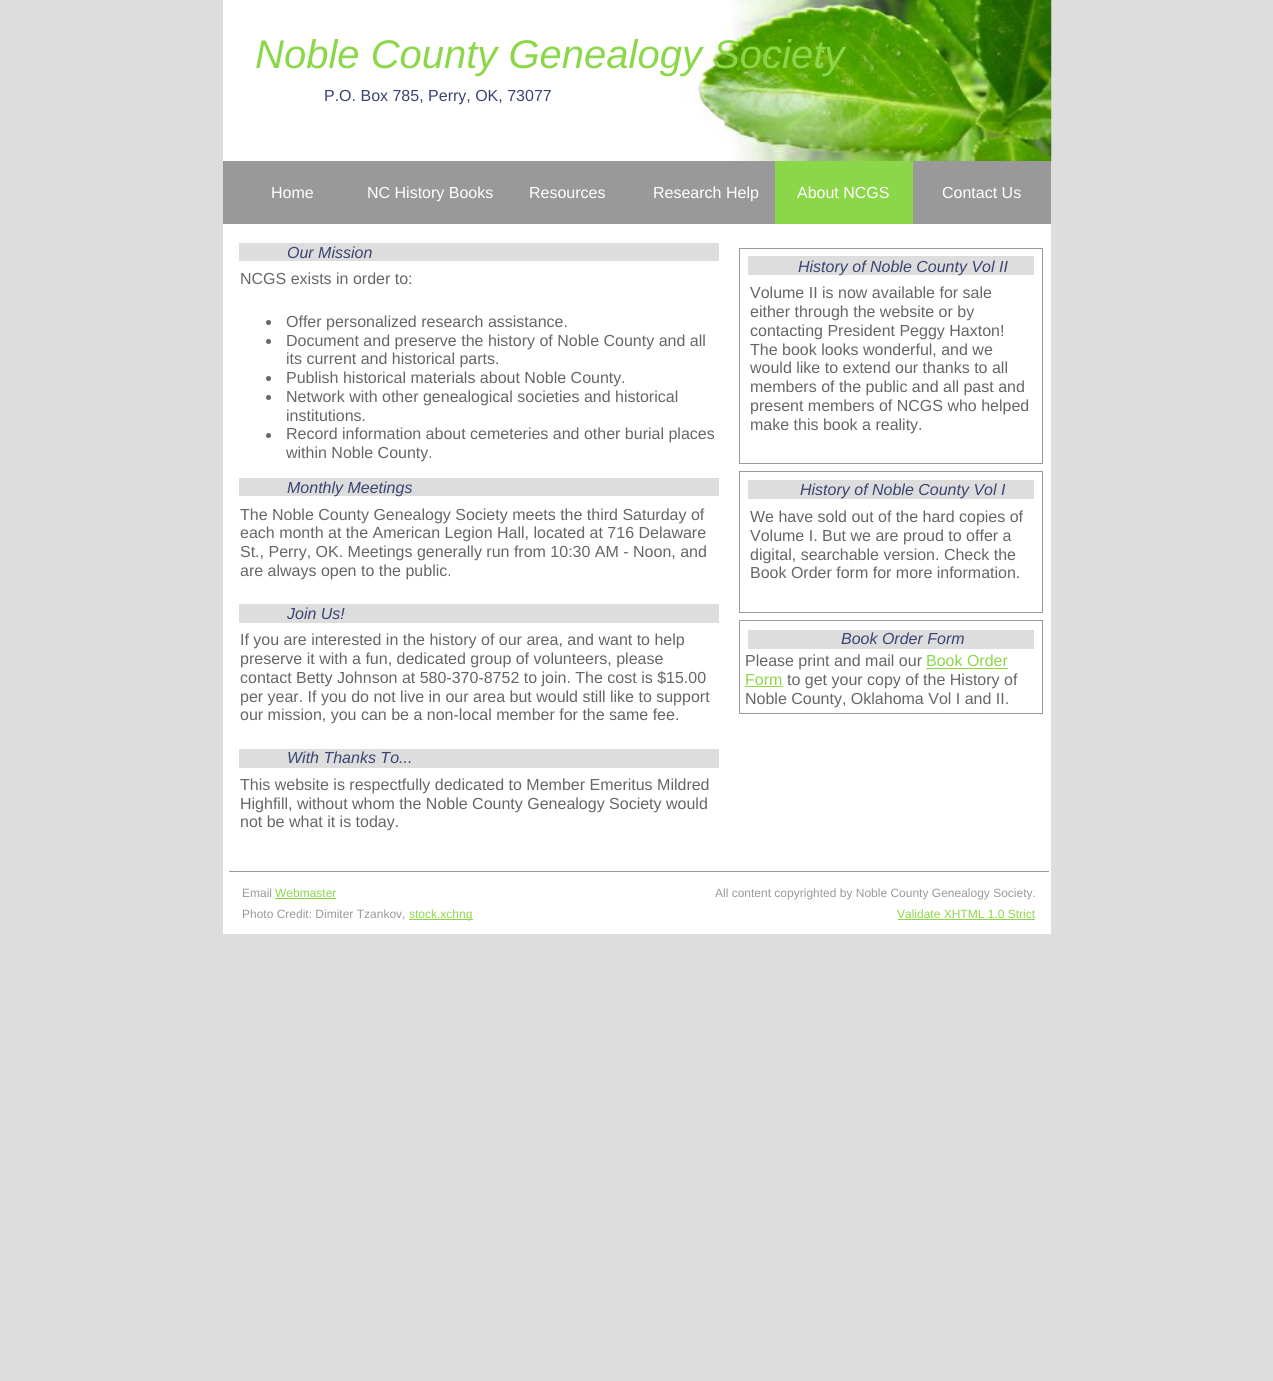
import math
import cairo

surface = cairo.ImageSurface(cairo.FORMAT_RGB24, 1273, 1381)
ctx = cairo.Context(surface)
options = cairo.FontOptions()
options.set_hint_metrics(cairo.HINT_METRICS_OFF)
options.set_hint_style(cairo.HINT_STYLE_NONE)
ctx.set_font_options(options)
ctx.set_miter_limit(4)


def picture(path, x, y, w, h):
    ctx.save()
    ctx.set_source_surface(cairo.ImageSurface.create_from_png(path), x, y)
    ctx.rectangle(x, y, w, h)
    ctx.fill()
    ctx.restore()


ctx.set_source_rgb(0.867, 0.867, 0.867)
ctx.paint()
ctx.set_source_rgb(1, 1, 1)
ctx.rectangle(223, 0, 828, 934)
ctx.fill()
picture("img1.png", 685, 0, 367, 162)
ctx.select_font_face("Liberation Sans", cairo.FONT_SLANT_ITALIC)
ctx.set_font_size(40)
ctx.set_source_rgb(0.549, 0.843, 0.286)
ctx.move_to(255, 68)
ctx.show_text("Noble County Genealogy Society")
ctx.select_font_face("Liberation Sans")
ctx.set_font_size(16)
ctx.set_source_rgb(0.231, 0.267, 0.443)
ctx.move_to(324, 101)
ctx.show_text("P.O. Box 785, Perry, OK, 73077")
ctx.set_source_rgb(0.6, 0.6, 0.6)
ctx.rectangle(223, 161, 828, 63)
ctx.fill()
ctx.set_source_rgb(1, 1, 1)
ctx.move_to(271, 198)
ctx.show_text("Home")
ctx.move_to(367, 198)
ctx.show_text("NC History Books")
ctx.move_to(529, 198)
ctx.show_text("Resources")
ctx.move_to(653, 198)
ctx.show_text("Research Help")
ctx.set_source_rgb(0.549, 0.843, 0.286)
ctx.rectangle(775, 161, 138, 63)
ctx.fill()
ctx.set_source_rgb(1, 1, 1)
ctx.move_to(797, 198)
ctx.show_text("About NCGS")
ctx.move_to(942, 198)
ctx.show_text("Contact Us")
ctx.set_source_rgb(0.867, 0.867, 0.867)
ctx.rectangle(239, 243, 480, 18)
ctx.fill()
ctx.select_font_face("Liberation Sans", cairo.FONT_SLANT_ITALIC)
ctx.set_source_rgb(0.231, 0.267, 0.443)
ctx.move_to(287, 258)
ctx.show_text("Our Mission")
ctx.select_font_face("Liberation Sans")
ctx.set_source_rgb(0.4, 0.4, 0.4)
ctx.move_to(240, 284)
ctx.show_text("NCGS exists in order to:")
ctx.new_path()
ctx.arc(268.5, 322.5, 2.5, 0, 2 * math.pi)
ctx.fill()
ctx.move_to(286, 327)
ctx.show_text("Offer personalized research assistance.")
ctx.new_path()
ctx.arc(268.5, 341.5, 2.5, 0, 2 * math.pi)
ctx.fill()
ctx.move_to(286, 346)
ctx.show_text("Document and preserve the history of Noble County and all")
ctx.move_to(286, 364)
ctx.show_text("its current and historical parts.")
ctx.new_path()
ctx.arc(268.5, 378.5, 2.5, 0, 2 * math.pi)
ctx.fill()
ctx.move_to(286, 383)
ctx.show_text("Publish historical materials about Noble County.")
ctx.new_path()
ctx.arc(268.5, 397.5, 2.5, 0, 2 * math.pi)
ctx.fill()
ctx.move_to(286, 402)
ctx.show_text("Network with other genealogical societies and historical")
ctx.move_to(286, 421)
ctx.show_text("institutions.")
ctx.new_path()
ctx.arc(268.5, 435.5, 2.5, 0, 2 * math.pi)
ctx.fill()
ctx.move_to(286, 439)
ctx.show_text("Record information about cemeteries and other burial places")
ctx.move_to(286, 458)
ctx.show_text("within Noble County.")
ctx.set_source_rgb(0.867, 0.867, 0.867)
ctx.rectangle(239, 478, 480, 18)
ctx.fill()
ctx.select_font_face("Liberation Sans", cairo.FONT_SLANT_ITALIC)
ctx.set_source_rgb(0.231, 0.267, 0.443)
ctx.move_to(287, 493)
ctx.show_text("Monthly Meetings")
ctx.select_font_face("Liberation Sans")
ctx.set_source_rgb(0.4, 0.4, 0.4)
ctx.move_to(240, 520)
ctx.show_text("The Noble County Genealogy Society meets the third Saturday of")
ctx.move_to(240, 538)
ctx.show_text("each month at the American Legion Hall, located at 716 Delaware")
ctx.move_to(240, 557)
ctx.show_text("St., Perry, OK. Meetings generally run from 10:30 AM - Noon, and")
ctx.move_to(240, 576)
ctx.show_text("are always open to the public.")
ctx.set_source_rgb(0.867, 0.867, 0.867)
ctx.rectangle(239, 604, 480, 19)
ctx.fill()
ctx.select_font_face("Liberation Sans", cairo.FONT_SLANT_ITALIC)
ctx.set_source_rgb(0.231, 0.267, 0.443)
ctx.move_to(287, 619)
ctx.show_text("Join Us!")
ctx.select_font_face("Liberation Sans")
ctx.set_source_rgb(0.4, 0.4, 0.4)
ctx.move_to(240, 645)
ctx.show_text("If you are interested in the history of our area, and want to help")
ctx.move_to(240, 664)
ctx.show_text("preserve it with a fun, dedicated group of volunteers, please")
ctx.move_to(240, 683)
ctx.show_text("contact Betty Johnson at 580-370-8752 to join. The cost is $15.00")
ctx.move_to(240, 702)
ctx.show_text("per year. If you do not live in our area but would still like to support")
ctx.move_to(240, 720)
ctx.show_text("our mission, you can be a non-local member for the same fee.")
ctx.set_source_rgb(0.867, 0.867, 0.867)
ctx.rectangle(239, 749, 480, 19)
ctx.fill()
ctx.select_font_face("Liberation Sans", cairo.FONT_SLANT_ITALIC)
ctx.set_source_rgb(0.231, 0.267, 0.443)
ctx.move_to(287, 763)
ctx.show_text("With Thanks To...")
ctx.select_font_face("Liberation Sans")
ctx.set_source_rgb(0.4, 0.4, 0.4)
ctx.move_to(240, 790)
ctx.show_text("This website is respectfully dedicated to Member Emeritus Mildred")
ctx.move_to(240, 809)
ctx.show_text("Highfill, without whom the Noble County Genealogy Society would")
ctx.move_to(240, 827)
ctx.show_text("not be what it is today.")
ctx.rectangle(739.5, 248.5, 303, 215)
ctx.set_source_rgb(0.6, 0.6, 0.6)
ctx.set_line_width(1)
ctx.stroke()
ctx.set_source_rgb(0.867, 0.867, 0.867)
ctx.rectangle(748, 256, 286, 19)
ctx.fill()
ctx.select_font_face("Liberation Sans", cairo.FONT_SLANT_ITALIC)
ctx.set_source_rgb(0.231, 0.267, 0.443)
ctx.move_to(798, 272)
ctx.show_text("History of Noble County Vol II")
ctx.select_font_face("Liberation Sans")
ctx.set_source_rgb(0.4, 0.4, 0.4)
ctx.move_to(750, 298)
ctx.show_text("Volume II is now available for sale")
ctx.move_to(750, 317)
ctx.show_text("either through the website or by")
ctx.move_to(750, 336)
ctx.show_text("contacting President Peggy Haxton!")
ctx.move_to(750, 355)
ctx.show_text("The book looks wonderful, and we")
ctx.move_to(750, 373)
ctx.show_text("would like to extend our thanks to all")
ctx.move_to(750, 392)
ctx.show_text("members of the public and all past and")
ctx.move_to(750, 411)
ctx.show_text("present members of NCGS who helped")
ctx.move_to(750, 430)
ctx.show_text("make this book a reality.")
ctx.rectangle(739.5, 471.5, 303, 141)
ctx.set_source_rgb(0.6, 0.6, 0.6)
ctx.stroke()
ctx.set_source_rgb(0.867, 0.867, 0.867)
ctx.rectangle(748, 480, 286, 19)
ctx.fill()
ctx.select_font_face("Liberation Sans", cairo.FONT_SLANT_ITALIC)
ctx.set_source_rgb(0.231, 0.267, 0.443)
ctx.move_to(800, 495)
ctx.show_text("History of Noble County Vol I")
ctx.select_font_face("Liberation Sans")
ctx.set_source_rgb(0.4, 0.4, 0.4)
ctx.move_to(750, 522)
ctx.show_text("We have sold out of the hard copies of")
ctx.move_to(750, 541)
ctx.show_text("Volume I. But we are proud to offer a")
ctx.move_to(750, 560)
ctx.show_text("digital, searchable version. Check the")
ctx.move_to(750, 578)
ctx.show_text("Book Order form for more information.")
ctx.rectangle(739.5, 620.5, 303, 93)
ctx.set_source_rgb(0.6, 0.6, 0.6)
ctx.stroke()
ctx.set_source_rgb(0.867, 0.867, 0.867)
ctx.rectangle(748, 630, 286, 19)
ctx.fill()
ctx.select_font_face("Liberation Sans", cairo.FONT_SLANT_ITALIC)
ctx.set_source_rgb(0.231, 0.267, 0.443)
ctx.move_to(841, 644)
ctx.show_text("Book Order Form")
ctx.select_font_face("Liberation Sans")
ctx.set_source_rgb(0.4, 0.4, 0.4)
ctx.move_to(745, 666)
ctx.show_text("Please print and mail our")
ctx.set_source_rgb(0.549, 0.843, 0.286)
ctx.move_to(926, 666)
ctx.show_text("Book Order")
ctx.rectangle(926, 668, 82, 1)
ctx.fill()
ctx.move_to(745, 685)
ctx.show_text("Form")
ctx.rectangle(745, 686, 38, 1)
ctx.fill()
ctx.set_source_rgb(0.4, 0.4, 0.4)
ctx.move_to(787, 685)
ctx.show_text("to get your copy of the History of")
ctx.move_to(745, 704)
ctx.show_text("Noble County, Oklahoma Vol I and II.")
ctx.set_source_rgb(0.6, 0.6, 0.6)
ctx.rectangle(229, 871, 820, 1)
ctx.fill()
ctx.set_font_size(12)
ctx.move_to(242, 897)
ctx.show_text("Email")
ctx.set_source_rgb(0.549, 0.843, 0.286)
ctx.move_to(275, 897)
ctx.show_text("Webmaster")
ctx.rectangle(275, 898, 61, 1)
ctx.fill()
ctx.set_source_rgb(0.6, 0.6, 0.6)
ctx.move_to(715, 897)
ctx.show_text("All content copyrighted by Noble County Genealogy Society.")
ctx.set_source_rgb(0.549, 0.843, 0.286)
ctx.move_to(897, 918)
ctx.show_text("Validate XHTML 1.0 Strict")
ctx.rectangle(898, 919, 137, 1)
ctx.fill()
ctx.set_source_rgb(0.6, 0.6, 0.6)
ctx.move_to(242, 918)
ctx.show_text("Photo Credit: Dimiter Tzankov,")
ctx.set_source_rgb(0.549, 0.843, 0.286)
ctx.rectangle(409, 919, 64, 1)
ctx.fill()
ctx.move_to(409, 918)
ctx.show_text("stock.xchng")
surface.write_to_png("page.png")
